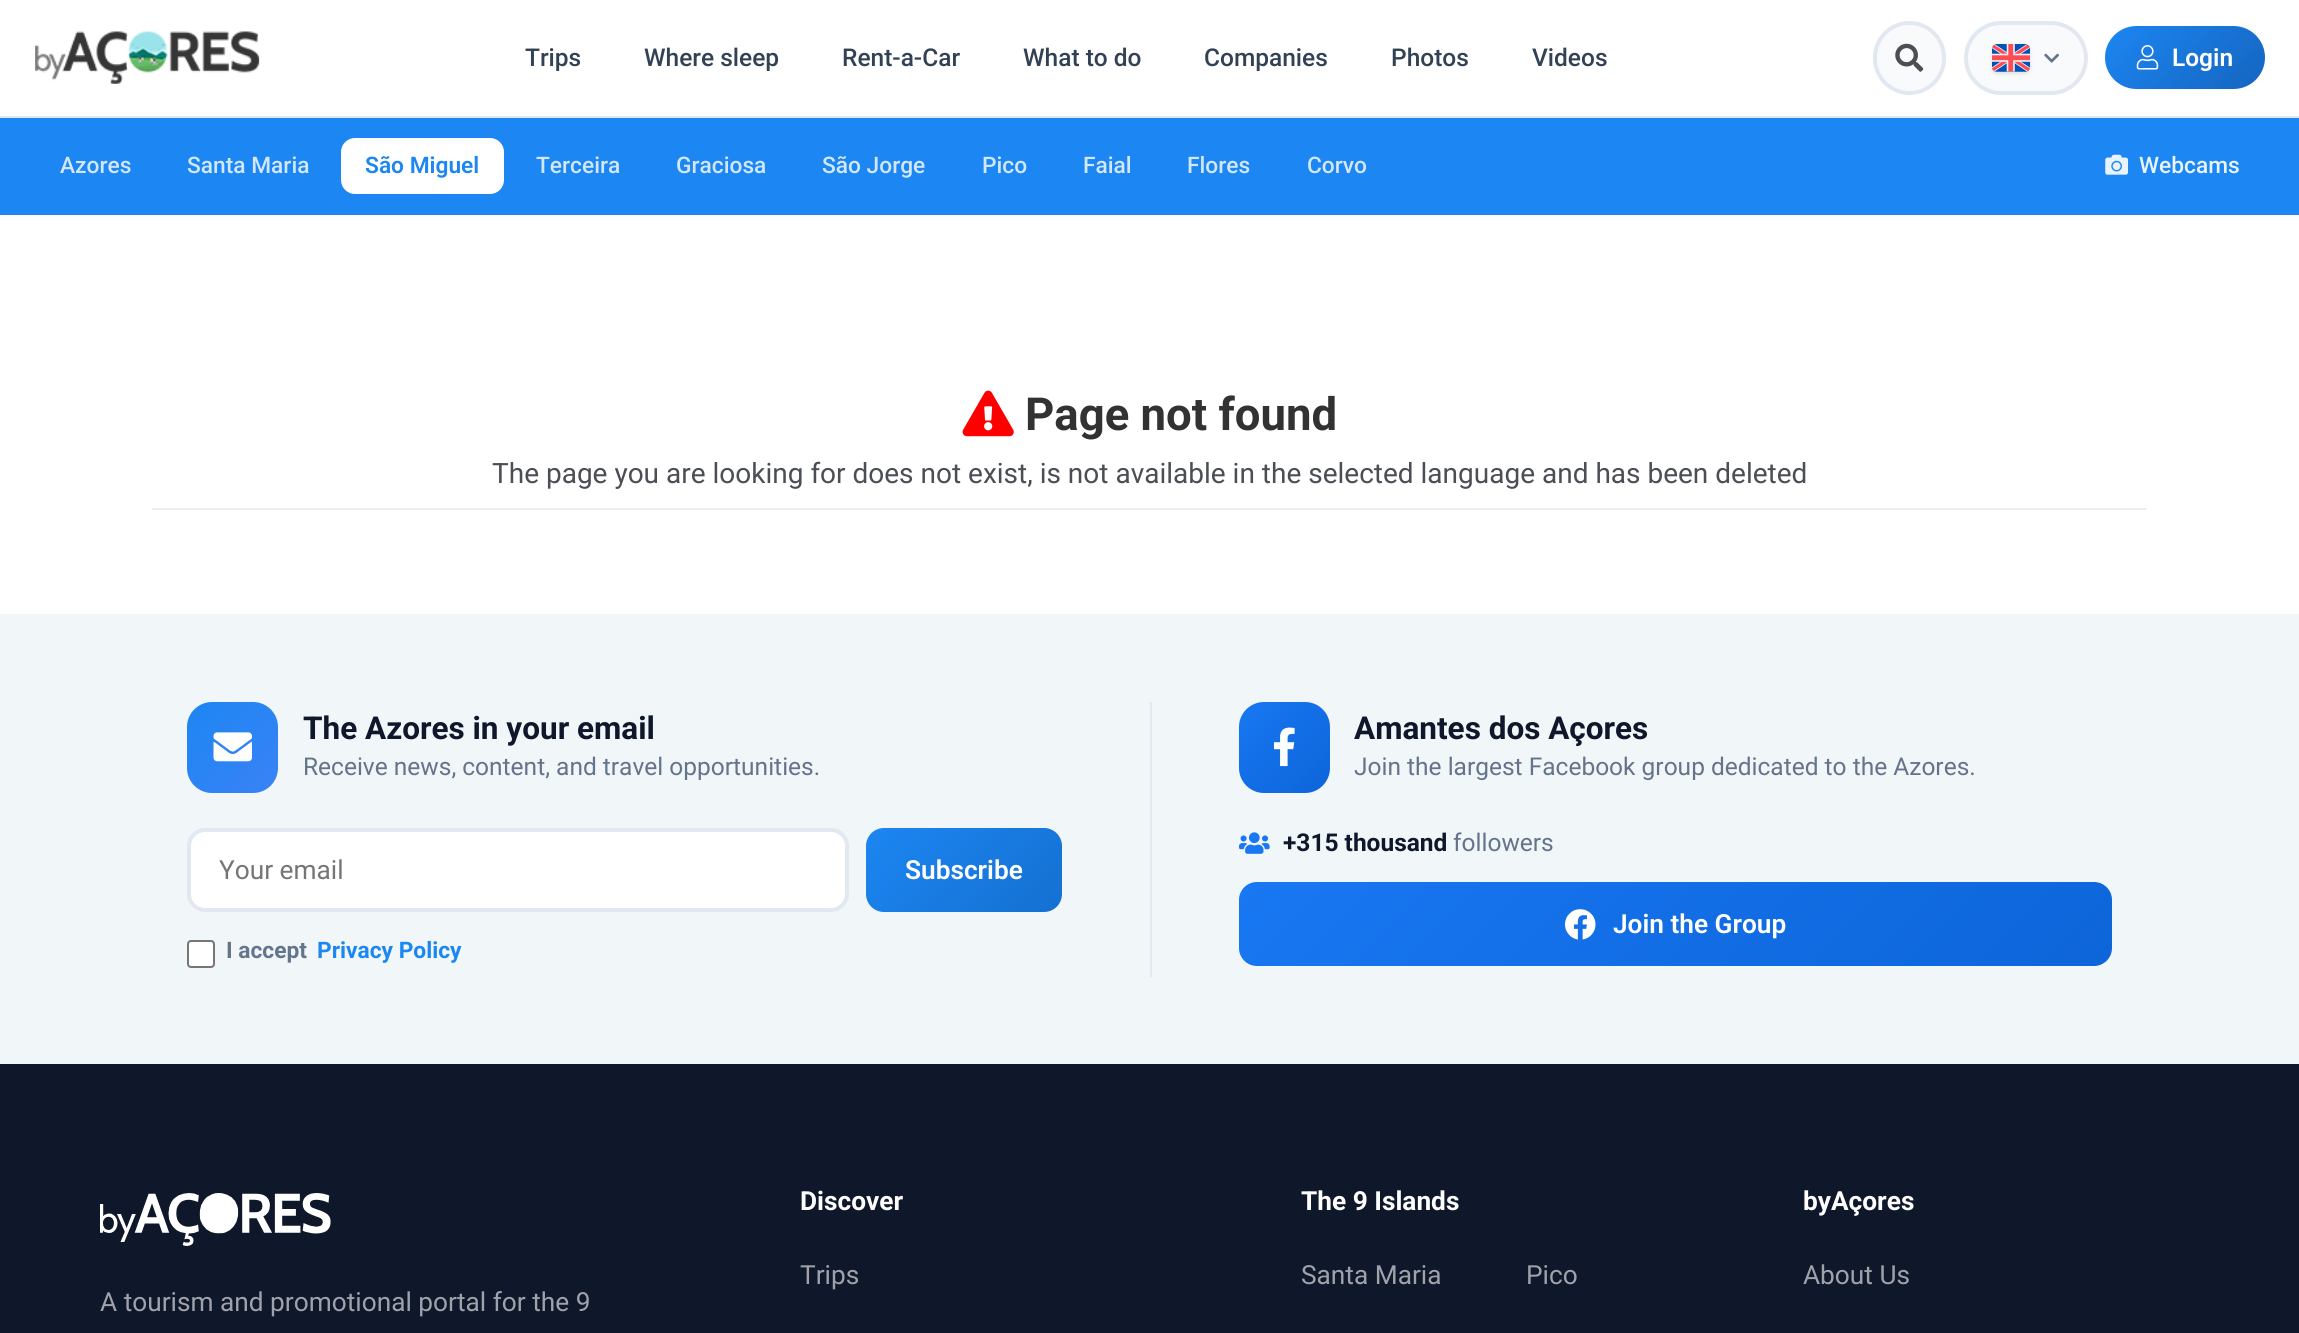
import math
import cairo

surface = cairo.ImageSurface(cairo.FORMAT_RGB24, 2299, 1333)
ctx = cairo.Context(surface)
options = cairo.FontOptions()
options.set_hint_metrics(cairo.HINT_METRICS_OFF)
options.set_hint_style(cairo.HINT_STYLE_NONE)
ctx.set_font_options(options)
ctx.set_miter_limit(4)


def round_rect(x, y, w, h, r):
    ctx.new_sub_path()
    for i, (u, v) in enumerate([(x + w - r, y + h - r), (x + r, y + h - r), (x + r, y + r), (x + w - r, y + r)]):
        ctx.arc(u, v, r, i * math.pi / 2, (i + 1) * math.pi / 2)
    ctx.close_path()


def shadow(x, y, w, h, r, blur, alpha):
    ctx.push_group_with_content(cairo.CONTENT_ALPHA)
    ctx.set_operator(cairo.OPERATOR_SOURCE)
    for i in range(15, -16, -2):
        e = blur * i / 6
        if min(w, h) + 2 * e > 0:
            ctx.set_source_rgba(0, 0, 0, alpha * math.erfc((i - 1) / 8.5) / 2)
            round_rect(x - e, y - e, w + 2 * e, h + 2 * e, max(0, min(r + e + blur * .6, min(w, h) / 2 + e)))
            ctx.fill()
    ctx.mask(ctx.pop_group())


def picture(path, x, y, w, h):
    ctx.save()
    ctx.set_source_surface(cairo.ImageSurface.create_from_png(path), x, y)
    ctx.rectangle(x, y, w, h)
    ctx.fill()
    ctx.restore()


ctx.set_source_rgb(1, 1, 1)
ctx.paint()
ctx.set_source_rgb(0.886, 0.91, 0.941)
ctx.rectangle(0, 116, 2299, 2)
ctx.fill()
picture("img1.png", 35, 31, 225, 53)
ctx.select_font_face("Roboto Medium")
ctx.set_font_size(24.5)
ctx.set_source_rgb(0.2, 0.255, 0.333)
ctx.move_to(525, 66)
ctx.show_text("Trips")
ctx.move_to(644, 66)
ctx.show_text("Where sleep")
ctx.move_to(842, 66)
ctx.show_text("Rent-a-Car")
ctx.move_to(1023, 66)
ctx.show_text("What to do")
ctx.move_to(1204, 66)
ctx.show_text("Companies")
ctx.move_to(1391, 66)
ctx.show_text("Photos")
ctx.move_to(1532, 66)
ctx.show_text("Videos")
ctx.set_source_rgb(0.973, 0.98, 0.988)
round_rect(1875, 23, 69, 70, 34.5)
ctx.fill_preserve()
ctx.set_source_rgb(0.886, 0.91, 0.941)
ctx.set_line_width(4)
ctx.stroke()
picture("img2.png", 1895, 43, 29, 29)
ctx.set_source_rgb(0.973, 0.98, 0.988)
round_rect(1966, 23, 120, 70, 35)
ctx.fill_preserve()
ctx.set_source_rgb(0.886, 0.91, 0.941)
ctx.stroke()
ctx.set_source_rgb(0, 0, 0)
shadow(1992, 46, 38, 28, 5, 2, 0.1)
picture("img3.png", 1992, 44, 38, 28)
picture("img4.png", 2044, 53, 16, 10)
gradient = cairo.LinearGradient(2129, 2.2, 2240, 113)
gradient.add_color_stop_rgba(0, 0.11, 0.525, 0.949, 1)
gradient.add_color_stop_rgba(1, 0.082, 0.396, 0.753, 1)
ctx.set_source(gradient)
round_rect(2105, 26, 160, 63, 31.5)
ctx.fill()
picture("img5.png", 2136, 45, 23, 25)
ctx.select_font_face("Roboto SemiBold")
ctx.set_source_rgb(1, 1, 1)
ctx.move_to(2172, 66)
ctx.show_text("Login")
ctx.set_source_rgb(0.11, 0.525, 0.949)
ctx.rectangle(0, 118, 2299, 97)
ctx.fill()
ctx.select_font_face("Roboto Medium")
ctx.set_font_size(22.75)
ctx.set_source_rgb(0.824, 0.906, 0.988)
ctx.move_to(60, 173)
ctx.show_text("Azores")
ctx.move_to(187, 173)
ctx.show_text("Santa Maria")
ctx.set_source_rgb(1, 1, 1)
round_rect(341, 138, 163, 56, 14)
ctx.fill()
ctx.select_font_face("Roboto SemiBold")
ctx.set_source_rgb(0.11, 0.525, 0.949)
ctx.move_to(365, 173)
ctx.show_text("São Miguel")
ctx.select_font_face("Roboto Medium")
ctx.set_source_rgb(0.824, 0.906, 0.988)
ctx.move_to(536, 173)
ctx.show_text("Terceira")
ctx.move_to(676, 173)
ctx.show_text("Graciosa")
ctx.move_to(822, 173)
ctx.show_text("São Jorge")
ctx.move_to(982, 173)
ctx.show_text("Pico")
ctx.move_to(1083, 173)
ctx.show_text("Faial")
ctx.move_to(1187, 173)
ctx.show_text("Flores")
ctx.move_to(1307, 173)
ctx.show_text("Corvo")
picture("img6.png", 2105, 154, 23, 21)
ctx.set_source_rgb(0.91, 0.953, 0.996)
ctx.move_to(2139, 173)
ctx.show_text("Webcams")
picture("img7.png", 962, 390, 52, 47)
ctx.select_font_face("Roboto", cairo.FONT_SLANT_NORMAL, cairo.FONT_WEIGHT_BOLD)
ctx.set_font_size(45.5)
ctx.set_source_rgb(0.196, 0.196, 0.196)
ctx.move_to(1025, 430)
ctx.show_text("Page not found")
ctx.set_source_rgb(0.933, 0.933, 0.933)
ctx.rectangle(152, 508, 1995, 2)
ctx.fill()
ctx.select_font_face("Roboto")
ctx.set_font_size(28)
ctx.set_source_rgb(0.298, 0.306, 0.333)
ctx.move_to(492, 483)
ctx.show_text("The page you are looking for does not exist, is not available in the selected language and has been deleted")
ctx.set_source_rgb(0.945, 0.961, 0.976)
ctx.rectangle(0, 614, 2299, 450)
ctx.fill()
gradient = cairo.LinearGradient(187, 702, 278, 793)
gradient.add_color_stop_rgba(0, 0.11, 0.525, 0.949, 1)
gradient.add_color_stop_rgba(1, 0.231, 0.51, 0.965, 1)
ctx.set_source(gradient)
round_rect(187, 702, 91, 91, 25)
ctx.fill()
picture("img8.png", 213, 732, 39, 30)
ctx.select_font_face("Roboto", cairo.FONT_SLANT_NORMAL, cairo.FONT_WEIGHT_BOLD)
ctx.set_font_size(31.5)
ctx.set_source_rgb(0.059, 0.09, 0.165)
ctx.move_to(303, 739)
ctx.show_text("The Azores in your email")
ctx.select_font_face("Roboto")
ctx.set_font_size(24.5)
ctx.set_source_rgb(0.392, 0.455, 0.545)
ctx.move_to(303, 775)
ctx.show_text("Receive news, content, and travel opportunities.")
ctx.set_source_rgb(1, 1, 1)
round_rect(189, 830, 658, 80, 16)
ctx.fill_preserve()
ctx.set_source_rgb(0.886, 0.91, 0.941)
ctx.stroke()
ctx.set_font_size(26.25)
ctx.set_source_rgb(0.459, 0.459, 0.459)
ctx.move_to(219, 879)
ctx.show_text("Your email")
gradient = cairo.LinearGradient(894, 800, 1034, 940)
gradient.add_color_stop_rgba(0, 0.11, 0.525, 0.949, 1)
gradient.add_color_stop_rgba(1, 0.082, 0.439, 0.82, 1)
ctx.set_source(gradient)
round_rect(866, 828, 196, 84, 18)
ctx.fill()
ctx.select_font_face("Roboto SemiBold")
ctx.set_source_rgb(1, 1, 1)
ctx.move_to(905, 879)
ctx.show_text("Subscribe")
round_rect(188, 941, 26, 26, 3)
ctx.fill_preserve()
ctx.set_source_rgb(0.463, 0.463, 0.463)
ctx.set_line_width(2)
ctx.stroke()
ctx.select_font_face("Roboto", cairo.FONT_SLANT_NORMAL, cairo.FONT_WEIGHT_BOLD)
ctx.set_font_size(22.75)
ctx.set_source_rgb(0.392, 0.455, 0.545)
ctx.move_to(226, 958)
ctx.show_text("I accept")
ctx.set_source_rgb(0.11, 0.525, 0.949)
ctx.move_to(317, 958)
ctx.show_text("Privacy Policy")
ctx.set_source_rgb(0.886, 0.91, 0.941)
ctx.rectangle(1150, 702, 2, 275)
ctx.fill()
gradient = cairo.LinearGradient(1239, 702, 1330, 793)
gradient.add_color_stop_rgba(0, 0.094, 0.467, 0.949, 1)
gradient.add_color_stop_rgba(1, 0.051, 0.396, 0.851, 1)
ctx.set_source(gradient)
round_rect(1239, 702, 91, 91, 25)
ctx.fill()
picture("img9.png", 1274, 727, 21, 40)
ctx.set_font_size(31.5)
ctx.set_source_rgb(0.059, 0.09, 0.165)
ctx.move_to(1354, 739)
ctx.show_text("Amantes dos Açores")
ctx.select_font_face("Roboto")
ctx.set_font_size(24.5)
ctx.set_source_rgb(0.392, 0.455, 0.545)
ctx.move_to(1354, 775)
ctx.show_text("Join the largest Facebook group dedicated to the Azores.")
picture("img10.png", 1239, 832, 31, 22)
ctx.select_font_face("Roboto", cairo.FONT_SLANT_NORMAL, cairo.FONT_WEIGHT_BOLD)
ctx.set_source_rgb(0.059, 0.09, 0.165)
ctx.move_to(1283, 851)
ctx.show_text("+315 thousand")
ctx.select_font_face("Roboto")
ctx.set_source_rgb(0.392, 0.455, 0.545)
ctx.move_to(1453, 851)
ctx.show_text("followers")
gradient = cairo.LinearGradient(1436, 685, 1915, 1163)
gradient.add_color_stop_rgba(0, 0.094, 0.467, 0.949, 1)
gradient.add_color_stop_rgba(1, 0.051, 0.396, 0.851, 1)
ctx.set_source(gradient)
round_rect(1239, 882, 873, 84, 18)
ctx.fill()
picture("img11.png", 1565, 909, 31, 31)
ctx.select_font_face("Roboto SemiBold")
ctx.set_font_size(26.25)
ctx.set_source_rgb(1, 1, 1)
ctx.move_to(1613, 933)
ctx.show_text("Join the Group")
ctx.set_source_rgb(0.059, 0.09, 0.165)
ctx.rectangle(0, 1064, 2299, 269)
ctx.fill()
ctx.select_font_face("Roboto", cairo.FONT_SLANT_NORMAL, cairo.FONT_WEIGHT_BOLD)
ctx.set_source_rgb(1, 1, 1)
ctx.move_to(800, 1210)
ctx.show_text("Discover")
ctx.select_font_face("Roboto")
ctx.set_source_rgb(0.624, 0.635, 0.667)
ctx.move_to(800, 1284)
ctx.show_text("Trips")
ctx.select_font_face("Roboto", cairo.FONT_SLANT_NORMAL, cairo.FONT_WEIGHT_BOLD)
ctx.set_source_rgb(1, 1, 1)
ctx.move_to(1301, 1210)
ctx.show_text("The 9 Islands")
ctx.select_font_face("Roboto")
ctx.set_source_rgb(0.624, 0.635, 0.667)
ctx.move_to(1301, 1284)
ctx.show_text("Santa Maria")
ctx.move_to(1526, 1284)
ctx.show_text("Pico")
ctx.select_font_face("Roboto", cairo.FONT_SLANT_NORMAL, cairo.FONT_WEIGHT_BOLD)
ctx.set_source_rgb(1, 1, 1)
ctx.move_to(1803, 1210)
ctx.show_text("byAçores")
ctx.select_font_face("Roboto")
ctx.set_source_rgb(0.624, 0.635, 0.667)
ctx.move_to(1803, 1284)
ctx.show_text("About Us")
picture("img12.png", 100, 1193, 231, 53)
ctx.move_to(100, 1311)
ctx.show_text("A tourism and promotional portal for the 9")
surface.write_to_png("page.png")
